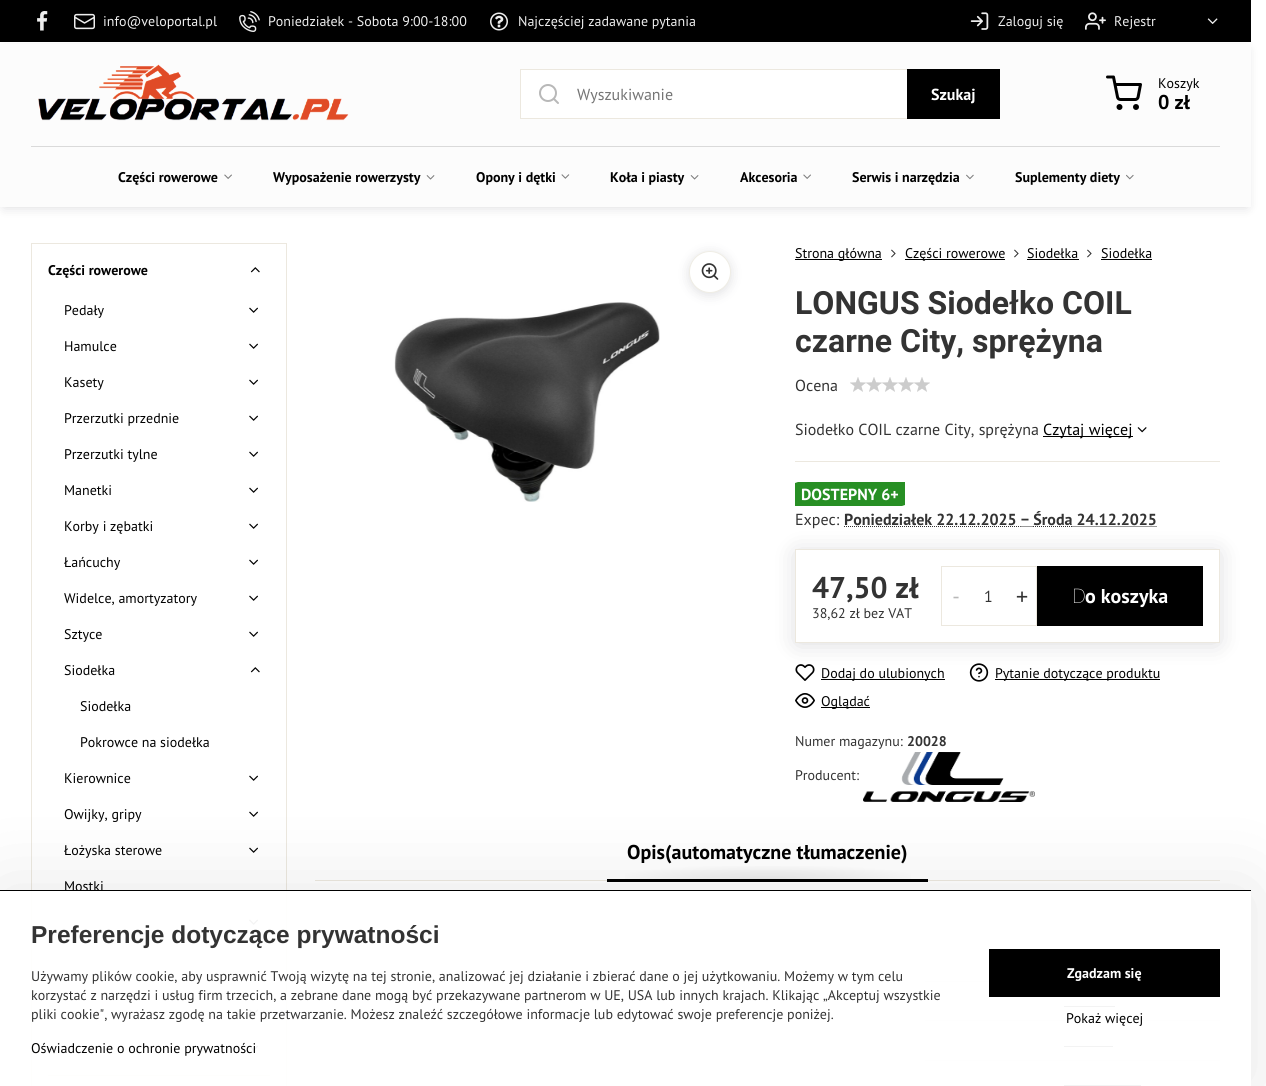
import math
import cairo

surface = cairo.ImageSurface(cairo.FORMAT_RGB24, 1266, 1086)
ctx = cairo.Context(surface)
options = cairo.FontOptions()
options.set_hint_metrics(cairo.HINT_METRICS_OFF)
options.set_hint_style(cairo.HINT_STYLE_NONE)
ctx.set_font_options(options)
ctx.set_miter_limit(4)


def round_rect(x, y, w, h, r):
    ctx.new_sub_path()
    for i, (u, v) in enumerate([(x + w - r, y + h - r), (x + r, y + h - r), (x + r, y + r), (x + w - r, y + r)]):
        ctx.arc(u, v, r, i * math.pi / 2, (i + 1) * math.pi / 2)
    ctx.close_path()


def shadow(x, y, w, h, r, blur, alpha):
    ctx.push_group_with_content(cairo.CONTENT_ALPHA)
    ctx.set_operator(cairo.OPERATOR_SOURCE)
    for i in range(15, -16, -2):
        e = blur * i / 6
        if min(w, h) + 2 * e > 0:
            ctx.set_source_rgba(0, 0, 0, alpha * math.erfc((i - 1) / 8.5) / 2)
            round_rect(x - e, y - e, w + 2 * e, h + 2 * e, max(0, min(r + e + blur * .6, min(w, h) / 2 + e)))
            ctx.fill()
    ctx.mask(ctx.pop_group())


def picture(path, x, y, w, h):
    ctx.save()
    ctx.set_source_surface(cairo.ImageSurface.create_from_png(path), x, y)
    ctx.rectangle(x, y, w, h)
    ctx.fill()
    ctx.restore()


ctx.set_source_rgb(1, 1, 1)
ctx.paint()
ctx.set_source_rgb(0, 0, 0)
ctx.rectangle(0, 0, 1251, 42)
ctx.fill()
picture("img1.png", 37, 11, 11, 20)
picture("img2.png", 74, 13, 21, 17)
ctx.select_font_face("PT Sans")
ctx.set_font_size(14)
ctx.set_source_rgb(0.933, 0.933, 0.933)
ctx.move_to(103, 26)
ctx.show_text("info@veloportal.pl")
picture("img3.png", 239, 11, 21, 21)
ctx.move_to(268, 26)
ctx.show_text("Poniedziałek - Sobota 9:00-18:00")
picture("img4.png", 490, 12, 18, 19)
ctx.move_to(518, 26)
ctx.show_text("Najczęściej zadawane pytania")
picture("img5.png", 970, 12, 19, 18)
ctx.move_to(998, 26)
ctx.show_text("Zaloguj się")
picture("img6.png", 1085, 12, 21, 18)
ctx.move_to(1114, 26)
ctx.show_text("Rejestr")
picture("img7.png", 1207, 18, 11, 6)
ctx.set_source_rgb(0, 0, 0.078)
shadow(4, 50, 1243, 157, 0, 6, 0.15)
ctx.set_source_rgb(0.988, 0.988, 0.988)
ctx.rectangle(0, 44, 1251, 163)
ctx.fill()
picture("img8.png", 38, 64, 311, 57)
ctx.set_source_rgb(1, 1, 1)
ctx.rectangle(521, 70, 386, 48)
ctx.fill()
ctx.rectangle(520.5, 69.5, 479, 49)
ctx.set_source_rgb(0.922, 0.91, 0.875)
ctx.set_line_width(1)
ctx.stroke()
picture("img9.png", 539, 84, 20, 20)
ctx.set_font_size(16)
ctx.set_source_rgb(0.459, 0.459, 0.459)
ctx.move_to(577, 100)
ctx.show_text("Wyszukiwanie")
ctx.set_source_rgb(0, 0, 0)
ctx.rectangle(907, 69, 93, 50)
ctx.fill()
ctx.select_font_face("PT Sans", cairo.FONT_SLANT_NORMAL, cairo.FONT_WEIGHT_BOLD)
ctx.set_source_rgb(1, 1, 1)
ctx.move_to(931, 100)
ctx.show_text("Szukaj")
picture("img10.png", 1106, 75, 36, 35)
ctx.select_font_face("PT Sans")
ctx.set_font_size(14)
ctx.set_source_rgb(0, 0, 0)
ctx.move_to(1158, 88)
ctx.show_text("Koszyk")
ctx.select_font_face("PT Sans", cairo.FONT_SLANT_NORMAL, cairo.FONT_WEIGHT_BOLD)
ctx.set_font_size(20)
ctx.move_to(1158, 109)
ctx.show_text("0 zł")
ctx.set_source_rgb(0.855, 0.855, 0.855)
ctx.rectangle(31, 146, 1189, 1)
ctx.fill()
ctx.set_font_size(14)
ctx.set_source_rgb(0, 0, 0)
ctx.move_to(118, 182)
ctx.show_text("Części rowerowe")
picture("img11.png", 224, 174, 8, 5)
ctx.move_to(273, 182)
ctx.show_text("Wyposażenie rowerzysty")
picture("img12.png", 426, 175, 9, 5)
ctx.move_to(476, 182)
ctx.show_text("Opony i dętki")
picture("img13.png", 561, 174, 9, 5)
ctx.move_to(610, 182)
ctx.show_text("Koła i piasty")
picture("img14.png", 690, 175, 9, 5)
ctx.move_to(740, 182)
ctx.show_text("Akcesoria")
picture("img15.png", 803, 174, 8, 5)
ctx.move_to(852, 182)
ctx.show_text("Serwis i narzędzia")
picture("img16.png", 966, 174, 8, 6)
ctx.move_to(1015, 182)
ctx.show_text("Suplementy diety")
picture("img17.png", 1126, 174, 8, 6)
ctx.rectangle(31.5, 243.5, 255, 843)
ctx.set_source_rgb(0.922, 0.91, 0.875)
ctx.stroke()
ctx.rectangle(48, 1075, 222, 1)
ctx.fill()
ctx.set_source_rgb(0, 0, 0)
ctx.move_to(48, 275)
ctx.show_text("Części rowerowe")
picture("img18.png", 250, 267, 10, 6)
ctx.select_font_face("PT Sans")
ctx.move_to(64, 315)
ctx.show_text("Pedały")
picture("img19.png", 249, 307, 9, 6)
ctx.move_to(64, 351)
ctx.show_text("Hamulce")
picture("img19.png", 249, 343, 9, 6)
ctx.move_to(64, 387)
ctx.show_text("Kasety")
picture("img19.png", 249, 379, 9, 6)
ctx.move_to(64, 423)
ctx.show_text("Przerzutki przednie")
picture("img19.png", 249, 415, 9, 6)
ctx.move_to(64, 459)
ctx.show_text("Przerzutki tylne")
picture("img19.png", 249, 451, 9, 6)
ctx.move_to(64, 495)
ctx.show_text("Manetki")
picture("img19.png", 249, 487, 9, 6)
ctx.move_to(64, 531)
ctx.show_text("Korby i zębatki")
picture("img19.png", 249, 523, 9, 6)
ctx.move_to(64, 567)
ctx.show_text("Łańcuchy")
picture("img19.png", 249, 559, 9, 6)
ctx.move_to(64, 603)
ctx.show_text("Widelce, amortyzatory")
picture("img19.png", 249, 595, 9, 6)
ctx.move_to(64, 639)
ctx.show_text("Sztyce")
picture("img19.png", 249, 631, 9, 6)
ctx.move_to(64, 675)
ctx.show_text("Siodełka")
picture("img18.png", 250, 667, 10, 6)
ctx.move_to(80, 711)
ctx.show_text("Siodełka")
ctx.move_to(80, 747)
ctx.show_text("Pokrowce na siodełka")
ctx.move_to(64, 783)
ctx.show_text("Kierownice")
picture("img19.png", 249, 775, 9, 6)
ctx.move_to(64, 819)
ctx.show_text("Owijky, gripy")
picture("img19.png", 249, 811, 9, 6)
ctx.move_to(64, 855)
ctx.show_text("Łożyska sterowe")
picture("img19.png", 249, 847, 9, 6)
ctx.move_to(64, 891)
ctx.show_text("Mostki")
picture("img19.png", 249, 919, 9, 6)
picture("img19.png", 249, 1009, 9, 6)
picture("img19.png", 249, 1045, 9, 6)
ctx.set_source_rgb(0.2, 0.2, 0.263)
shadow(689, 253, 42, 42, 21, 6, 0.15)
ctx.set_source_rgb(1, 1, 1)
ctx.arc(710, 272, 20.5, 0, 2 * math.pi)
ctx.fill_preserve()
ctx.set_source_rgb(0.937, 0.929, 0.898)
ctx.stroke()
picture("img20.png", 701, 263, 18, 17)
picture("img21.png", 394, 302, 266, 200)
ctx.set_source_rgb(0, 0, 0)
ctx.rectangle(795, 259, 87, 1)
ctx.fill()
ctx.move_to(795, 258)
ctx.show_text("Strona główna")
picture("img22.png", 891, 249, 5, 9)
ctx.rectangle(905, 259, 100, 1)
ctx.fill()
ctx.move_to(905, 258)
ctx.show_text("Części rowerowe")
picture("img22.png", 1014, 249, 5, 9)
ctx.move_to(1027, 258)
ctx.show_text("Siodełka")
ctx.rectangle(1027, 259, 52, 1)
ctx.fill()
picture("img22.png", 1087, 249, 5, 9)
ctx.move_to(1101, 258)
ctx.show_text("Siodełka")
ctx.rectangle(1101, 259, 51, 1)
ctx.fill()
ctx.select_font_face("Roboto", cairo.FONT_SLANT_NORMAL, cairo.FONT_WEIGHT_BOLD)
ctx.set_font_size(32)
ctx.set_source_rgb(0.2, 0.2, 0.2)
ctx.move_to(795, 314)
ctx.show_text("LONGUS Siodełko COIL")
ctx.move_to(795, 352)
ctx.show_text("czarne City, sprężyna")
ctx.select_font_face("PT Sans")
ctx.set_font_size(16)
ctx.move_to(795, 391)
ctx.show_text("Ocena")
picture("img23.png", 850, 377, 80, 15)
ctx.move_to(795, 435)
ctx.show_text("Siodełko COIL czarne City, sprężyna")
ctx.set_source_rgb(0, 0, 0)
ctx.rectangle(1043, 436, 90, 1)
ctx.fill()
ctx.move_to(1043, 435)
ctx.show_text("Czytaj więcej")
picture("img24.png", 1137, 427, 10, 6)
ctx.set_source_rgb(0.922, 0.91, 0.875)
ctx.rectangle(795, 461, 425, 1)
ctx.fill()
ctx.set_source_rgb(0.153, 0.561, 0.141)
ctx.new_path()
ctx.move_to(798, 482)
ctx.line_to(905, 482)
ctx.line_to(905, 505)
ctx.line_to(902, 506)
ctx.line_to(795, 506)
ctx.line_to(795, 483)
ctx.close_path()
ctx.fill()
ctx.select_font_face("PT Sans", cairo.FONT_SLANT_NORMAL, cairo.FONT_WEIGHT_BOLD)
ctx.set_source_rgb(1, 1, 1)
ctx.move_to(801, 500)
ctx.show_text("DOSTEPNY 6+")
ctx.select_font_face("PT Sans")
ctx.set_source_rgb(0.2, 0.2, 0.2)
ctx.move_to(795, 525)
ctx.show_text("Expec:")
ctx.select_font_face("PT Sans", cairo.FONT_SLANT_NORMAL, cairo.FONT_WEIGHT_BOLD)
ctx.move_to(844, 525)
ctx.show_text("Poniedziałek 22.12.2025 − Środa 24.12.2025")
ctx.new_path()
ctx.move_to(844, 526.5)
ctx.line_to(932, 526.5)
ctx.set_dash([1, 1])
ctx.stroke()
ctx.new_path()
ctx.move_to(932, 526.5)
ctx.line_to(1020.5, 526.5)
ctx.stroke()
ctx.new_path()
ctx.move_to(1020.5, 526.5)
ctx.line_to(1033, 526.5)
ctx.move_to(1033, 526.5)
ctx.line_to(1072.5, 526.5)
ctx.stroke()
ctx.new_path()
ctx.move_to(1072.5, 526.5)
ctx.line_to(1157, 526.5)
ctx.stroke()
picture("img25.png", 795, 664, 20, 17)
ctx.set_source_rgb(0, 0, 0)
ctx.rectangle(821, 679, 124, 1)
ctx.fill()
picture("img26.png", 969, 663, 20, 19)
ctx.rectangle(995, 679, 165, 1)
ctx.fill()
ctx.save()
ctx.set_fill_rule(cairo.FILL_RULE_EVEN_ODD)
ctx.new_path()
ctx.move_to(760, 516)
ctx.line_to(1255, 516)
ctx.line_to(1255, 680)
ctx.line_to(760, 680)
ctx.close_path()
ctx.move_to(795, 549)
ctx.line_to(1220, 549)
ctx.line_to(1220, 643)
ctx.line_to(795, 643)
ctx.close_path()
ctx.clip()
ctx.set_source_rgb(0, 0, 0.078)
shadow(797, 553, 421, 90, 0, 12, 0.15)
ctx.restore()
ctx.rectangle(795.5, 549.5, 424, 93)
ctx.set_source_rgb(0.922, 0.91, 0.875)
ctx.set_dash([])
ctx.stroke()
ctx.set_font_size(30)
ctx.set_source_rgb(0.2, 0.2, 0.2)
ctx.move_to(812, 598)
ctx.show_text("47,50 zł")
ctx.select_font_face("PT Sans")
ctx.set_font_size(14)
ctx.move_to(812, 618)
ctx.show_text("38,62 zł bez VAT")
ctx.rectangle(941.5, 566.5, 95, 59)
ctx.set_source_rgb(0.922, 0.91, 0.875)
ctx.stroke()
ctx.select_font_face("DejaVu Sans Mono")
ctx.set_font_size(20)
ctx.set_source_rgb(0.722, 0.722, 0.722)
ctx.move_to(950, 603)
ctx.show_text("-")
ctx.select_font_face("PT Sans")
ctx.set_font_size(16)
ctx.set_source_rgb(0.2, 0.2, 0.2)
ctx.move_to(984, 602)
ctx.show_text("1")
ctx.select_font_face("DejaVu Sans Mono")
ctx.set_font_size(20)
ctx.move_to(1016, 603)
ctx.show_text("+")
ctx.set_source_rgb(0, 0, 0)
ctx.rectangle(1037, 566, 166, 60)
ctx.fill()
ctx.select_font_face("Noto Sans Thin")
ctx.set_source_rgb(1, 1, 1)
ctx.move_to(1072, 603)
ctx.show_text("D")
ctx.select_font_face("PT Sans", cairo.FONT_SLANT_NORMAL, cairo.FONT_WEIGHT_BOLD)
ctx.move_to(1085, 603)
ctx.show_text("o koszyka")
ctx.select_font_face("PT Sans")
ctx.set_font_size(14)
ctx.set_source_rgb(0, 0, 0)
ctx.move_to(821, 678)
ctx.show_text("Dodaj do ulubionych")
ctx.move_to(995, 678)
ctx.show_text("Pytanie dotyczące produktu")
picture("img27.png", 795, 693, 20, 15)
ctx.rectangle(821, 707, 49, 1)
ctx.fill()
ctx.move_to(821, 706)
ctx.show_text("Oglądać")
ctx.set_source_rgb(0.2, 0.2, 0.2)
ctx.move_to(795, 746)
ctx.show_text("Numer magazynu:")
ctx.select_font_face("PT Sans", cairo.FONT_SLANT_NORMAL, cairo.FONT_WEIGHT_BOLD)
ctx.move_to(907, 746)
ctx.show_text("20028")
ctx.select_font_face("PT Sans")
ctx.move_to(795, 780)
ctx.show_text("Producent:")
picture("img28.png", 863, 752, 172, 50)
ctx.set_source_rgb(0.922, 0.91, 0.875)
ctx.rectangle(315, 880, 905, 1)
ctx.fill()
ctx.set_source_rgb(0, 0, 0)
ctx.rectangle(607, 879, 321, 3)
ctx.fill()
gradient = cairo.RadialGradient(0, 0, 0, 0, 0, 1)
gradient.set_matrix(cairo.Matrix(1 / 161, 0, 0, 1 / 16, -1 * 768 / 161, -1 * 880 / 16))
gradient.add_color_stop_rgba(0, 0.91, 0.91, 0.91, 1)
gradient.add_color_stop_rgba(1, 1, 1, 1, 1)
ctx.set_source(gradient)
ctx.rectangle(625, 866, 286, 13)
ctx.fill()
ctx.select_font_face("PT Sans", cairo.FONT_SLANT_NORMAL, cairo.FONT_WEIGHT_BOLD)
ctx.set_font_size(20)
ctx.set_source_rgb(0, 0, 0)
ctx.move_to(627, 859)
ctx.show_text("Opis(automatyczne tłumaczenie)")
ctx.set_source_rgb(0.933, 0.933, 0.933)
ctx.rectangle(925, 981, 64, 1)
ctx.fill()
ctx.rectangle(925, 1020, 295, 1)
ctx.fill()
ctx.set_source_rgb(0, 0, 0)
ctx.rectangle(1064, 1006, 51, 1)
ctx.fill()
ctx.set_source_rgb(0.933, 0.933, 0.933)
ctx.rectangle(925, 1060, 295, 1)
ctx.fill()
ctx.set_source_rgb(0, 0, 0)
ctx.rectangle(1064, 1046, 49, 1)
ctx.fill()
ctx.rectangle(1064, 1085, 77, 1)
ctx.fill()
ctx.save()
ctx.set_fill_rule(cairo.FILL_RULE_EVEN_ODD)
ctx.new_path()
ctx.move_to(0, 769)
ctx.line_to(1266, 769)
ctx.line_to(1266, 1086)
ctx.line_to(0, 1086)
ctx.close_path()
ctx.move_to(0, 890)
ctx.line_to(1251, 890)
ctx.line_to(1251, 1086)
ctx.line_to(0, 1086)
ctx.close_path()
ctx.clip()
ctx.set_source_rgb(0, 0, 0)
shadow(0, 890, 1251, 196, 0, 40, 0.1)
ctx.restore()
ctx.set_source_rgba(1, 1, 1, 0.95)
ctx.rectangle(31, 891, 1189, 195)
ctx.fill()
ctx.set_source_rgb(0, 0, 0)
ctx.rectangle(0, 890, 1251, 1)
ctx.fill()
ctx.select_font_face("Liberation Sans", cairo.FONT_SLANT_NORMAL, cairo.FONT_WEIGHT_BOLD)
ctx.set_font_size(24.5)
ctx.set_source_rgb(0.2, 0.2, 0.2)
ctx.move_to(31, 943)
ctx.show_text("Preferencje dotyczące prywatności")
ctx.select_font_face("PT Sans")
ctx.set_font_size(14)
ctx.move_to(31, 981)
ctx.show_text("Używamy plików cookie, aby usprawnić Twoją wizytę na tej stronie, analizować jej działanie i zbierać dane o jej użytkowaniu. Możemy w tym celu")
ctx.move_to(31, 1000)
ctx.show_text("korzystać z narzędzi i usług firm trzecich, a zebrane dane mogą być przekazywane partnerom w UE, USA lub innych krajach. Klikając „Akceptuj wszystkie")
ctx.move_to(31, 1019)
ctx.show_text("pliki cookie\", wyrażasz zgodę na takie przetwarzanie. Możesz znaleźć szczegółowe informacje lub edytować swoje preferencje poniżej.")
ctx.set_source_rgb(0, 0, 0)
ctx.move_to(31, 1053)
ctx.show_text("Oświadczenie o ochronie prywatności")
ctx.rectangle(989, 949, 231, 48)
ctx.fill()
ctx.select_font_face("PT Sans", cairo.FONT_SLANT_NORMAL, cairo.FONT_WEIGHT_BOLD)
ctx.set_source_rgb(1, 1, 1)
ctx.move_to(1067, 978)
ctx.show_text("Zgadzam się")
ctx.select_font_face("PT Sans")
ctx.set_source_rgb(0, 0, 0)
ctx.move_to(1066, 1023)
ctx.show_text("Pokaż więcej")
surface.write_to_png("page.png")
